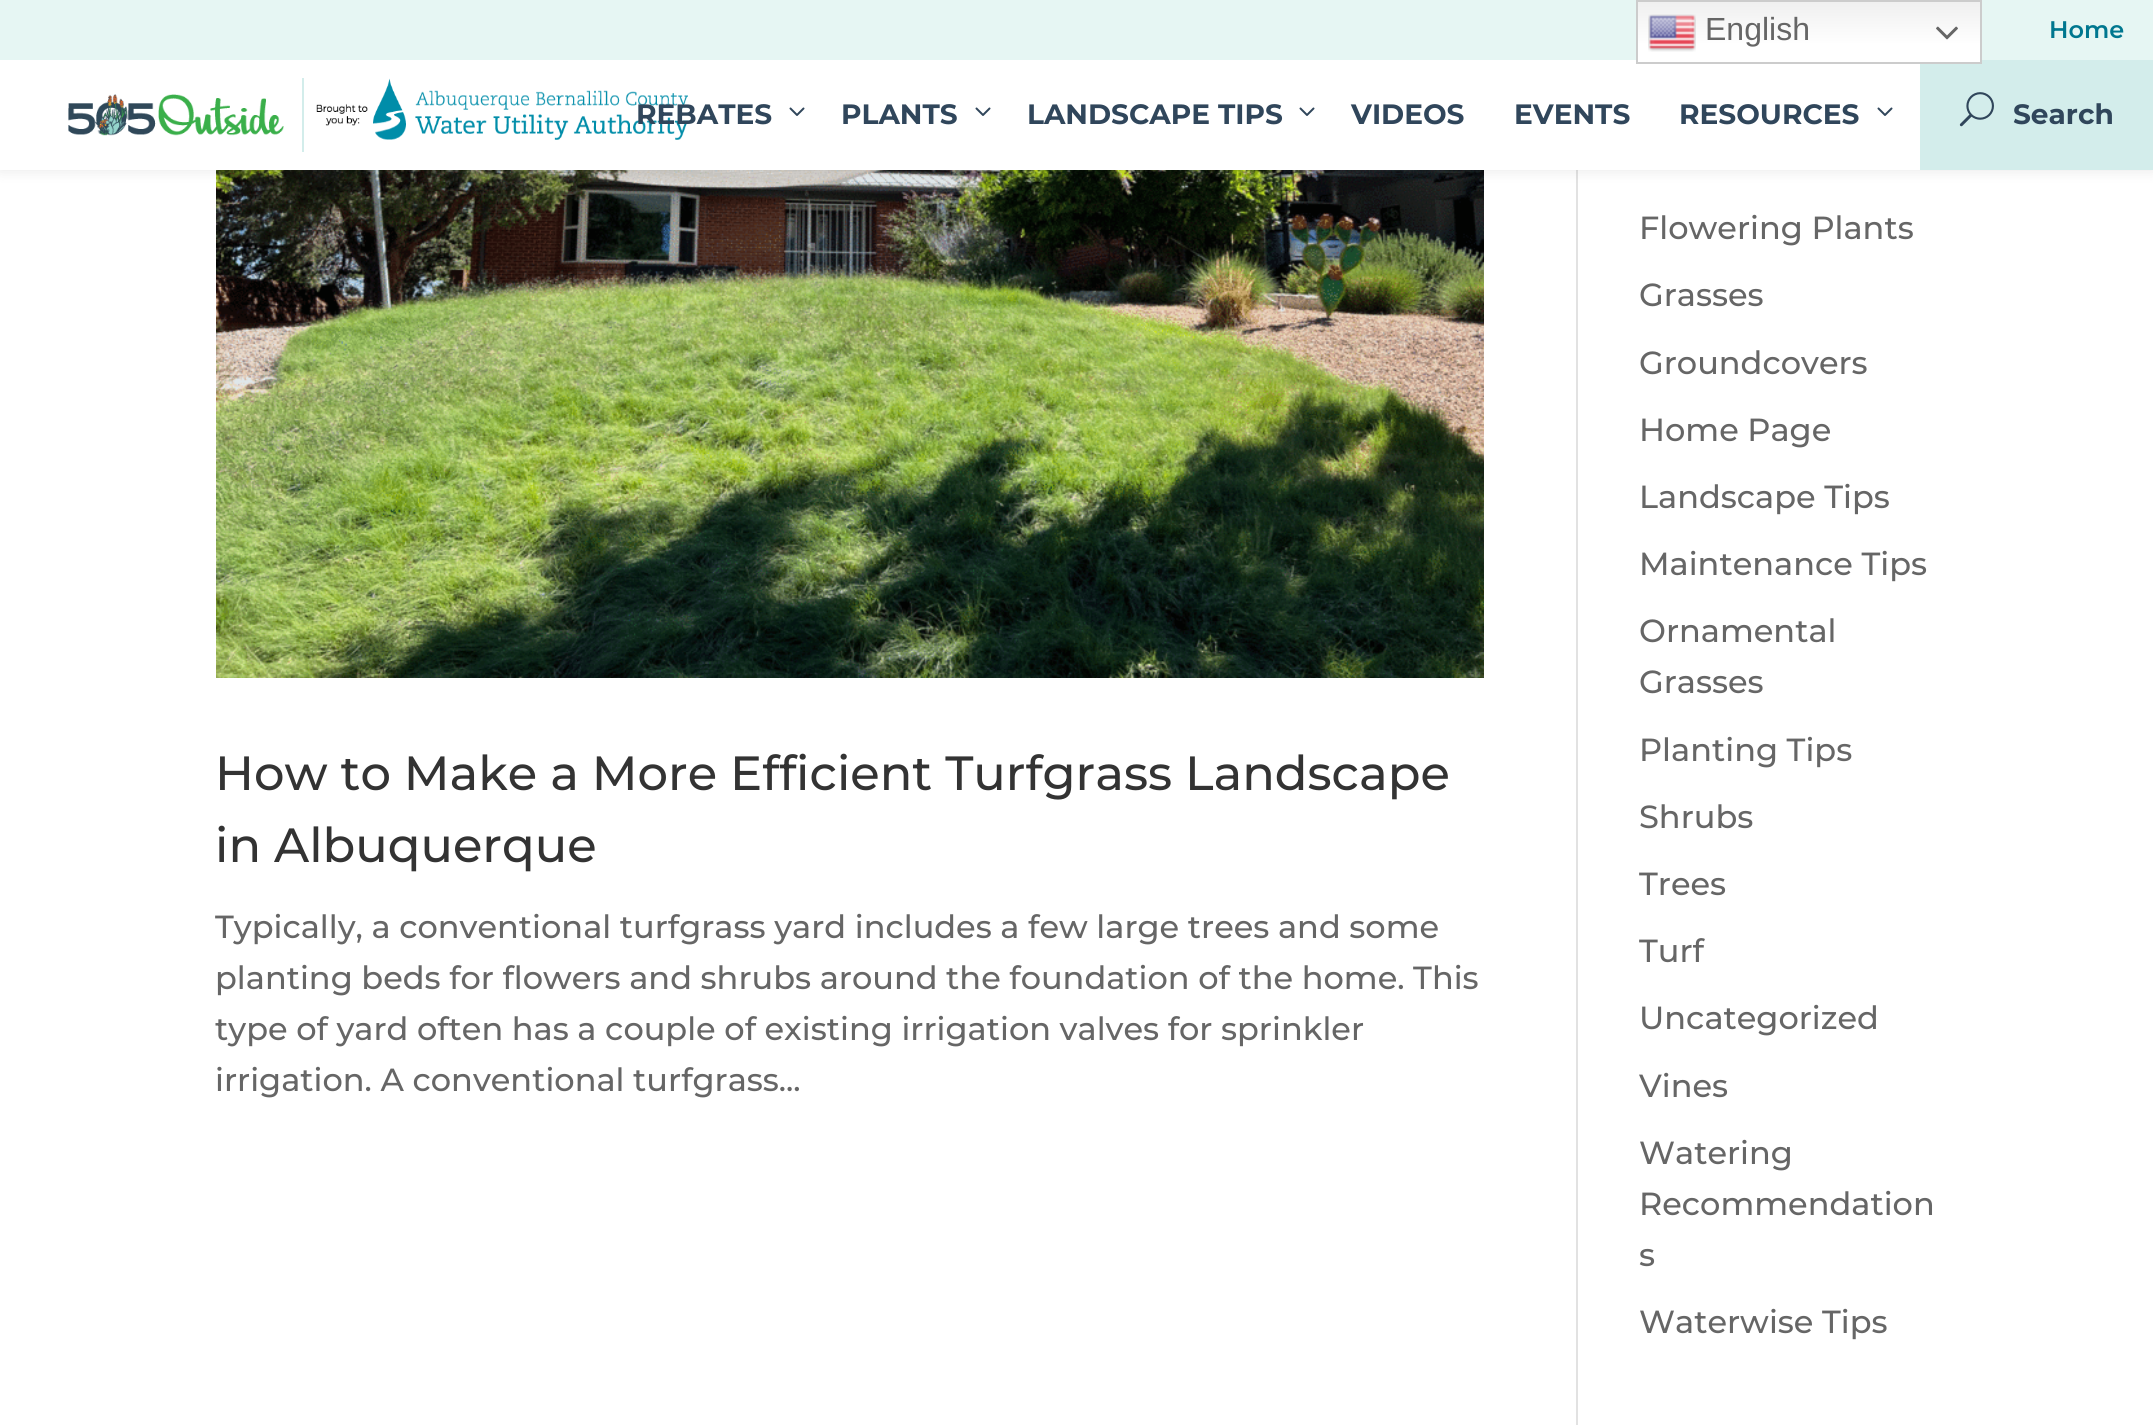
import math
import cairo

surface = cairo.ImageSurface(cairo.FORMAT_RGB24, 2153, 1425)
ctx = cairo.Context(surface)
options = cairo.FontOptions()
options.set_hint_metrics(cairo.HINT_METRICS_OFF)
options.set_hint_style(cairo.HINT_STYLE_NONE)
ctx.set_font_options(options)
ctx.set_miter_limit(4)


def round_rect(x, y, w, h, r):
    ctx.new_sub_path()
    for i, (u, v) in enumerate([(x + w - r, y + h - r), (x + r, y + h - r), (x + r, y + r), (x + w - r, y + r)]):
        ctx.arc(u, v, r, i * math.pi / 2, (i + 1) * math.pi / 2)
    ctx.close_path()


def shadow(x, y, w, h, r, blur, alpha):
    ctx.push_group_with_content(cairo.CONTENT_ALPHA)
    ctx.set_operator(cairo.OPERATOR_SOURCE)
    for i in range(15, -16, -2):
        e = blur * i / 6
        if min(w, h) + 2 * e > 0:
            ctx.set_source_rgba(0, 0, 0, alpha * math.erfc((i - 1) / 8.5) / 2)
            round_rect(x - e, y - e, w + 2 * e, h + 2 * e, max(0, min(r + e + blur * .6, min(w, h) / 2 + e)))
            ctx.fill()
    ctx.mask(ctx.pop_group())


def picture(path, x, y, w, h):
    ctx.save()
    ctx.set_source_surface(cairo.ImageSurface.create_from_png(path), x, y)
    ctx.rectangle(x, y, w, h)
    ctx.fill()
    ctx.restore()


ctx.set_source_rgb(1, 1, 1)
ctx.paint()
ctx.set_source_rgb(0.886, 0.886, 0.886)
ctx.rectangle(1576, 170, 2, 1255)
ctx.fill()
picture("img7.png", 216, 170, 1268, 508)
ctx.set_source_rgb(0, 0, 0)
shadow(0, 60, 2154, 110, 0, 7, 0.1)
ctx.set_source_rgb(0.902, 0.961, 0.953)
ctx.rectangle(0, 0, 2153, 60)
ctx.fill()
ctx.set_source_rgb(1, 1, 1)
ctx.rectangle(0, 60, 1920, 110)
ctx.fill()
ctx.set_source_rgb(0.827, 0.929, 0.918)
ctx.rectangle(1920, 60, 233, 110)
ctx.fill()
gradient = cairo.LinearGradient(1809, 0, 1809, 64)
gradient.add_color_stop_rgba(0, 0.937, 0.937, 0.937, 1)
gradient.add_color_stop_rgba(0.7, 1, 1, 1, 1)
ctx.set_source(gradient)
ctx.rectangle(1638, 2, 342, 60)
ctx.fill()
ctx.rectangle(1637, 1, 344, 62)
ctx.set_source_rgb(0.8, 0.8, 0.8)
ctx.stroke()
picture("img1.png", 1648, 14, 48, 38)
ctx.select_font_face("Liberation Sans")
ctx.set_font_size(32)
ctx.set_source_rgb(0.4, 0.4, 0.4)
ctx.move_to(1705, 40)
ctx.show_text("English")
picture("img2.png", 1936, 26, 22, 14)
ctx.select_font_face("Montserrat SemiBold")
ctx.set_font_size(24)
ctx.set_source_rgb(0, 0.467, 0.561)
ctx.move_to(2049, 38)
ctx.show_text("Home")
picture("img3.png", 68, 94, 216, 42)
ctx.set_source_rgb(0.827, 0.929, 0.918)
ctx.rectangle(302, 78, 2, 74)
ctx.fill()
picture("img4.png", 316, 78, 373, 62)
ctx.select_font_face("Montserrat", cairo.FONT_SLANT_NORMAL, cairo.FONT_WEIGHT_BOLD)
ctx.set_font_size(28)
ctx.set_source_rgb(0.188, 0.275, 0.357)
ctx.move_to(636, 124)
ctx.show_text("REBATES")
picture("img5.png", 789, 107, 16, 9)
ctx.move_to(841, 124)
ctx.show_text("PLANTS")
picture("img5.png", 975, 107, 16, 9)
ctx.move_to(1027, 124)
ctx.show_text("LANDSCAPE TIPS")
picture("img5.png", 1299, 107, 16, 9)
ctx.move_to(1351, 124)
ctx.show_text("VIDEOS")
ctx.move_to(1514, 124)
ctx.show_text("EVENTS")
ctx.move_to(1679, 124)
ctx.show_text("RESOURCES")
picture("img5.png", 1877, 107, 16, 9)
picture("img6.png", 1959, 92, 35, 35)
ctx.move_to(2013, 124)
ctx.show_text("Search")
ctx.select_font_face("Montserrat Medium")
ctx.set_font_size(48)
ctx.set_source_rgb(0.2, 0.2, 0.2)
ctx.move_to(215, 790)
ctx.show_text("How to Make a More Efficient Turfgrass Landscape")
ctx.move_to(215, 862)
ctx.show_text("in Albuquerque")
ctx.set_font_size(32)
ctx.set_source_rgb(0.4, 0.4, 0.4)
ctx.move_to(215, 938)
ctx.show_text("Typically, a conventional turfgrass yard includes a few large trees and some")
ctx.move_to(215, 989)
ctx.show_text("planting beds for flowers and shrubs around the foundation of the home. This")
ctx.move_to(215, 1040)
ctx.show_text("type of yard often has a couple of existing irrigation valves for sprinkler")
ctx.move_to(215, 1091)
ctx.show_text("irrigation. A conventional turfgrass...")
ctx.move_to(1639, 239)
ctx.show_text("Flowering Plants")
ctx.move_to(1639, 306)
ctx.show_text("Grasses")
ctx.move_to(1639, 374)
ctx.show_text("Groundcovers")
ctx.move_to(1639, 441)
ctx.show_text("Home Page")
ctx.move_to(1639, 508)
ctx.show_text("Landscape Tips")
ctx.move_to(1639, 575)
ctx.show_text("Maintenance Tips")
ctx.move_to(1639, 642)
ctx.show_text("Ornamental")
ctx.move_to(1639, 693)
ctx.show_text("Grasses")
ctx.move_to(1639, 761)
ctx.show_text("Planting Tips")
ctx.move_to(1639, 828)
ctx.show_text("Shrubs")
ctx.move_to(1639, 895)
ctx.show_text("Trees")
ctx.move_to(1639, 962)
ctx.show_text("Turf")
ctx.move_to(1639, 1029)
ctx.show_text("Uncategorized")
ctx.move_to(1639, 1097)
ctx.show_text("Vines")
ctx.move_to(1639, 1164)
ctx.show_text("Watering")
ctx.move_to(1639, 1215)
ctx.show_text("Recommendation")
ctx.move_to(1639, 1266)
ctx.show_text("s")
ctx.move_to(1639, 1333)
ctx.show_text("Waterwise Tips")
surface.write_to_png("page.png")
